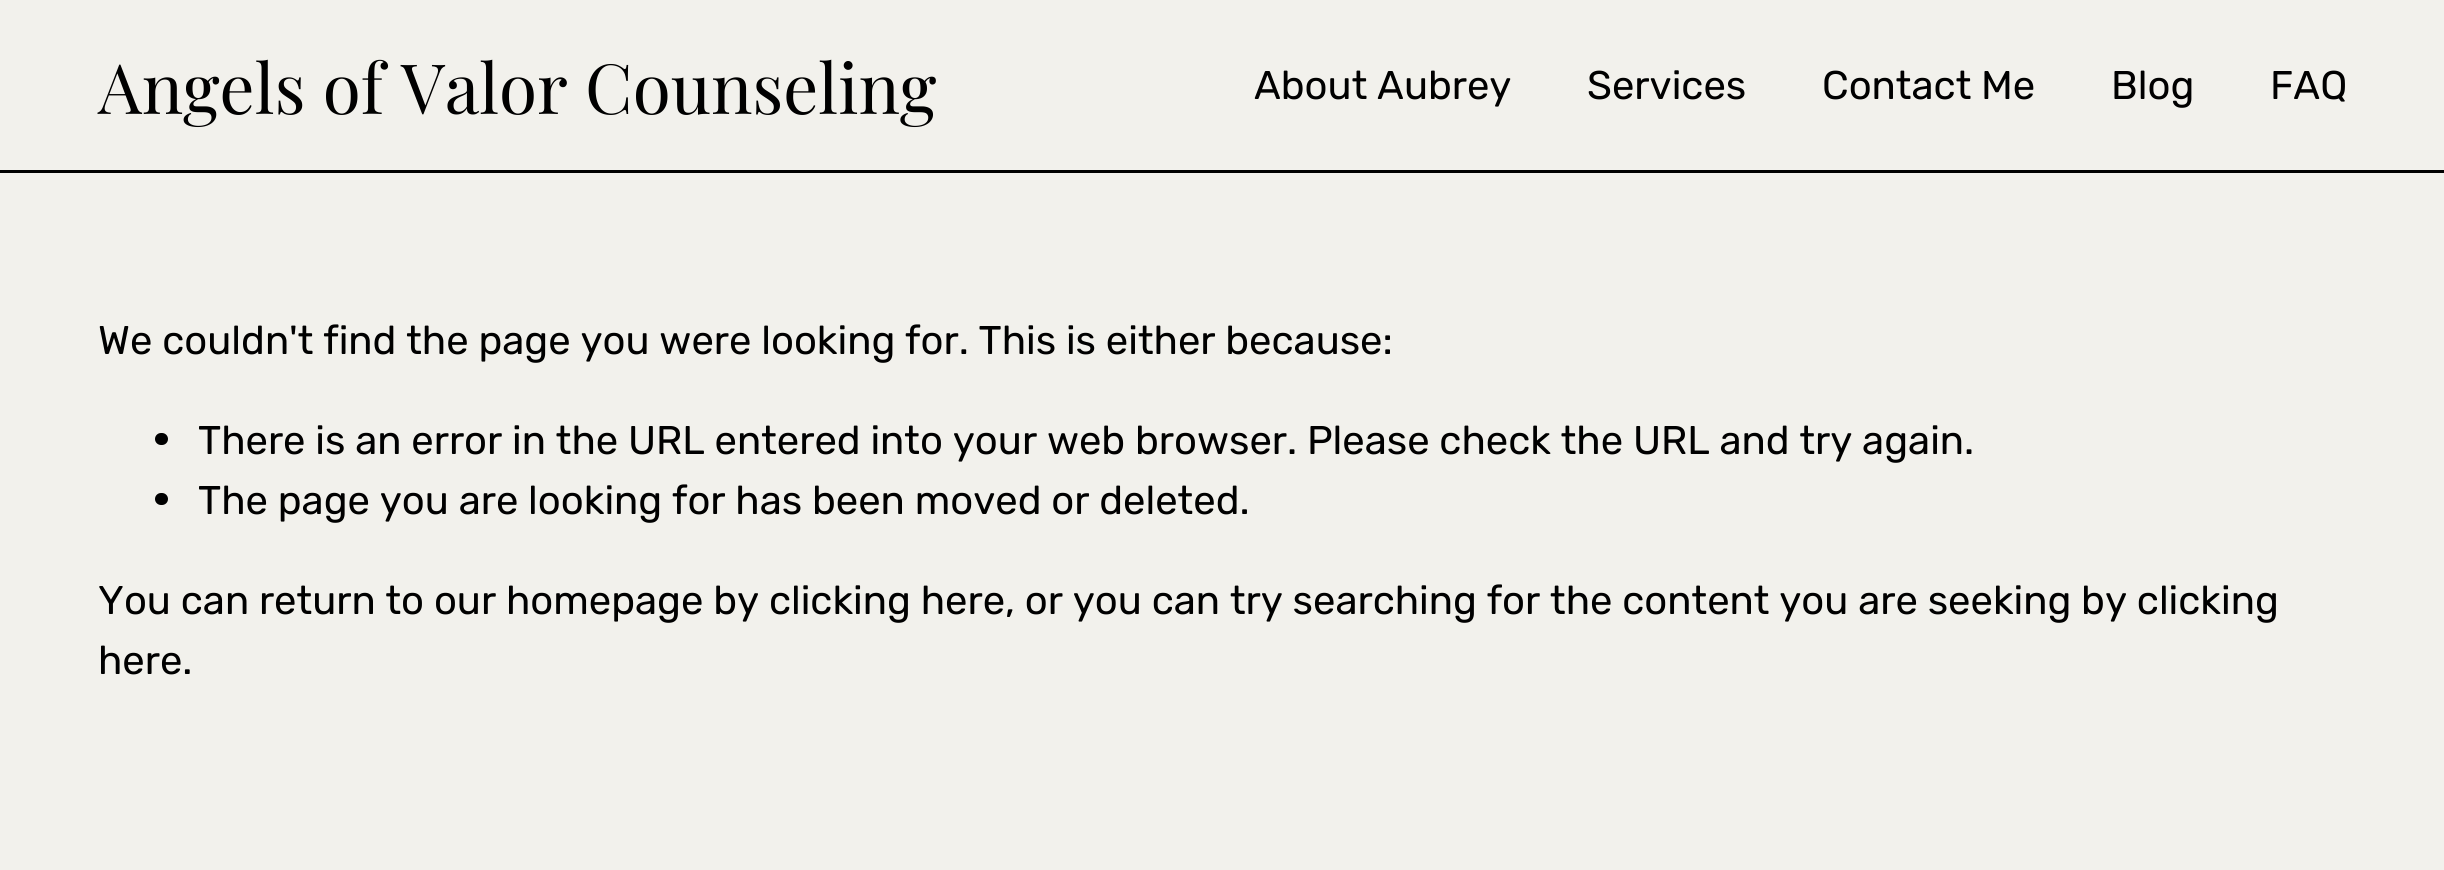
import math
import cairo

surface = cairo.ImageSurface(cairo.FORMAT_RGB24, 2444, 870)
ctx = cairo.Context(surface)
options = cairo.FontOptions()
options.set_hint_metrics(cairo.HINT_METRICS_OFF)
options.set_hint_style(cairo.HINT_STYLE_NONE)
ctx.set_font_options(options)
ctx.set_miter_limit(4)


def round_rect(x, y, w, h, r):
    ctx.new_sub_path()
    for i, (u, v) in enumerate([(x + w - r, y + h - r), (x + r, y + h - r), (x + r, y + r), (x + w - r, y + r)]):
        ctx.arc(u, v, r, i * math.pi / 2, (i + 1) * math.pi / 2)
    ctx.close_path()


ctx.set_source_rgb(0.949, 0.945, 0.925)
ctx.paint()
ctx.select_font_face("Playfair Display")
ctx.set_font_size(69.3)
ctx.set_source_rgb(0, 0, 0)
ctx.move_to(98, 114)
ctx.show_text("Angels of Valor Counseling")
ctx.select_font_face("Rubik")
ctx.set_font_size(40)
ctx.move_to(1254, 99)
ctx.show_text("About Aubrey")
ctx.move_to(1587, 99)
ctx.show_text("Services")
ctx.move_to(1822, 99)
ctx.show_text("Contact Me")
ctx.move_to(2111, 99)
ctx.show_text("Blog")
ctx.move_to(2270, 99)
ctx.show_text("FAQ")
ctx.rectangle(0, 170, 2444, 3)
ctx.fill()
ctx.move_to(98, 354)
ctx.show_text("We couldn't find the page you were looking for. This is either because:")
round_rect(155, 433, 13, 12, 6)
ctx.fill()
ctx.move_to(198, 454)
ctx.show_text("There is an error in the URL entered into your web browser. Please check the URL and try again.")
round_rect(155, 493, 13, 12, 6)
ctx.fill()
ctx.move_to(198, 514)
ctx.show_text("The page you are looking for has been moved or deleted.")
ctx.move_to(98, 614)
ctx.show_text("You can return to our homepage by clicking here, or you can try searching for the content you are seeking by clicking")
ctx.move_to(98, 674)
ctx.show_text("here.")
surface.write_to_png("page.png")
